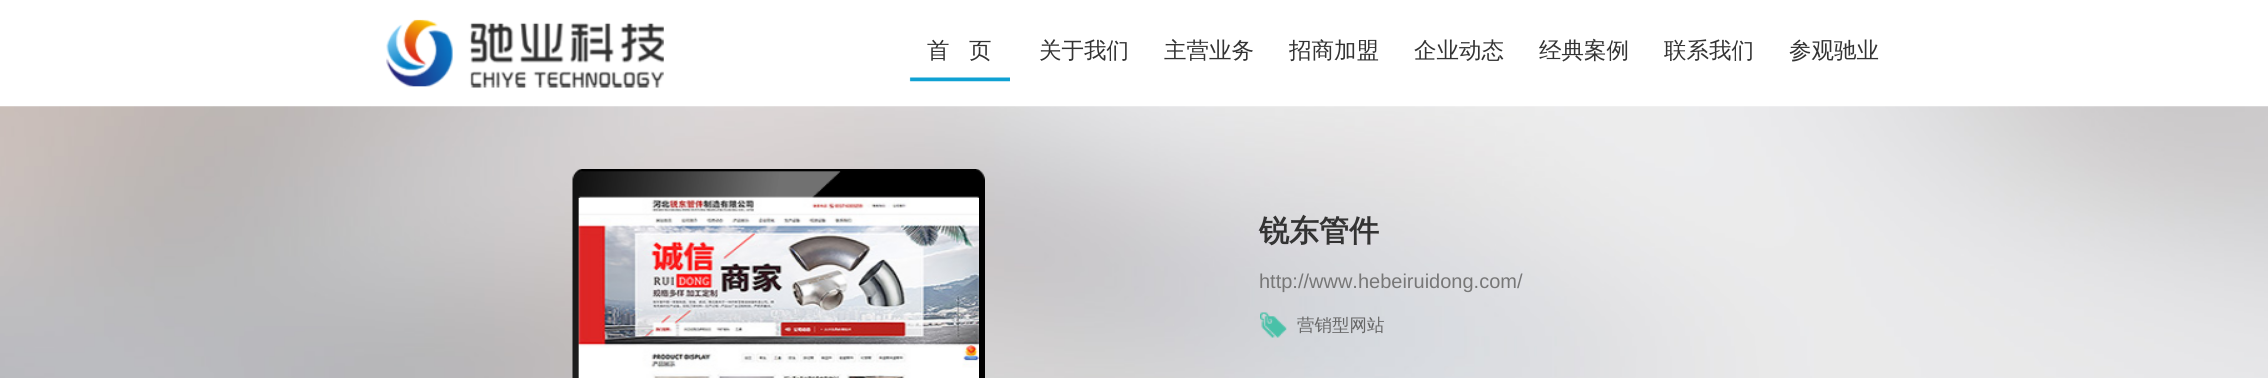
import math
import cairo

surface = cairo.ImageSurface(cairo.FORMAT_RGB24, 2268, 378)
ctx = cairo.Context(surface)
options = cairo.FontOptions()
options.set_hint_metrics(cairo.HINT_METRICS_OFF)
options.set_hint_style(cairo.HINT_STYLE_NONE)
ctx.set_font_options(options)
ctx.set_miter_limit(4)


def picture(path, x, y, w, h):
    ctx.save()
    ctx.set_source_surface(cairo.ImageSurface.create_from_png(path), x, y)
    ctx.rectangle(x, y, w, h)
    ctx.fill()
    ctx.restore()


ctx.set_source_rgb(1, 1, 1)
ctx.paint()
picture("img1.png", 386, 19, 278, 69)
ctx.select_font_face("WenQuanYi Zen Hei Medium")
ctx.set_font_size(22.5)
ctx.set_source_rgb(0.2, 0.2, 0.2)
ctx.move_to(927, 58)
ctx.show_text("首")
ctx.move_to(969, 58)
ctx.show_text("页")
ctx.move_to(1039, 58)
ctx.show_text("关于我们")
ctx.move_to(1164, 58)
ctx.show_text("主营业务")
ctx.move_to(1289, 58)
ctx.show_text("招商加盟")
ctx.move_to(1414, 58)
ctx.show_text("企业动态")
ctx.move_to(1539, 58)
ctx.show_text("经典案例")
ctx.move_to(1664, 58)
ctx.show_text("联系我们")
ctx.move_to(1789, 58)
ctx.show_text("参观驰业")
picture("img2.png", 909, 77, 101, 5)
picture("img3.png", 0, 106, 2268, 272)
picture("img4.png", 572, 169, 413, 209)
picture("img5.png", 578, 198, 401, 180)
ctx.select_font_face("WenQuanYi Zen Hei", cairo.FONT_SLANT_NORMAL, cairo.FONT_WEIGHT_BOLD)
ctx.set_font_size(30)
ctx.move_to(1259, 241)
ctx.show_text("锐东管件")
ctx.select_font_face("Liberation Sans")
ctx.set_font_size(20)
ctx.set_source_rgb(0.467, 0.467, 0.467)
ctx.move_to(1259, 288)
ctx.show_text("http://www.hebeiruidong.com/")
picture("img6.png", 1260, 312, 27, 26)
ctx.select_font_face("WenQuanYi Zen Hei Medium")
ctx.set_font_size(17.5)
ctx.set_source_rgb(0.4, 0.4, 0.4)
ctx.move_to(1297, 331)
ctx.show_text("营销型网站")
surface.write_to_png("page.png")
